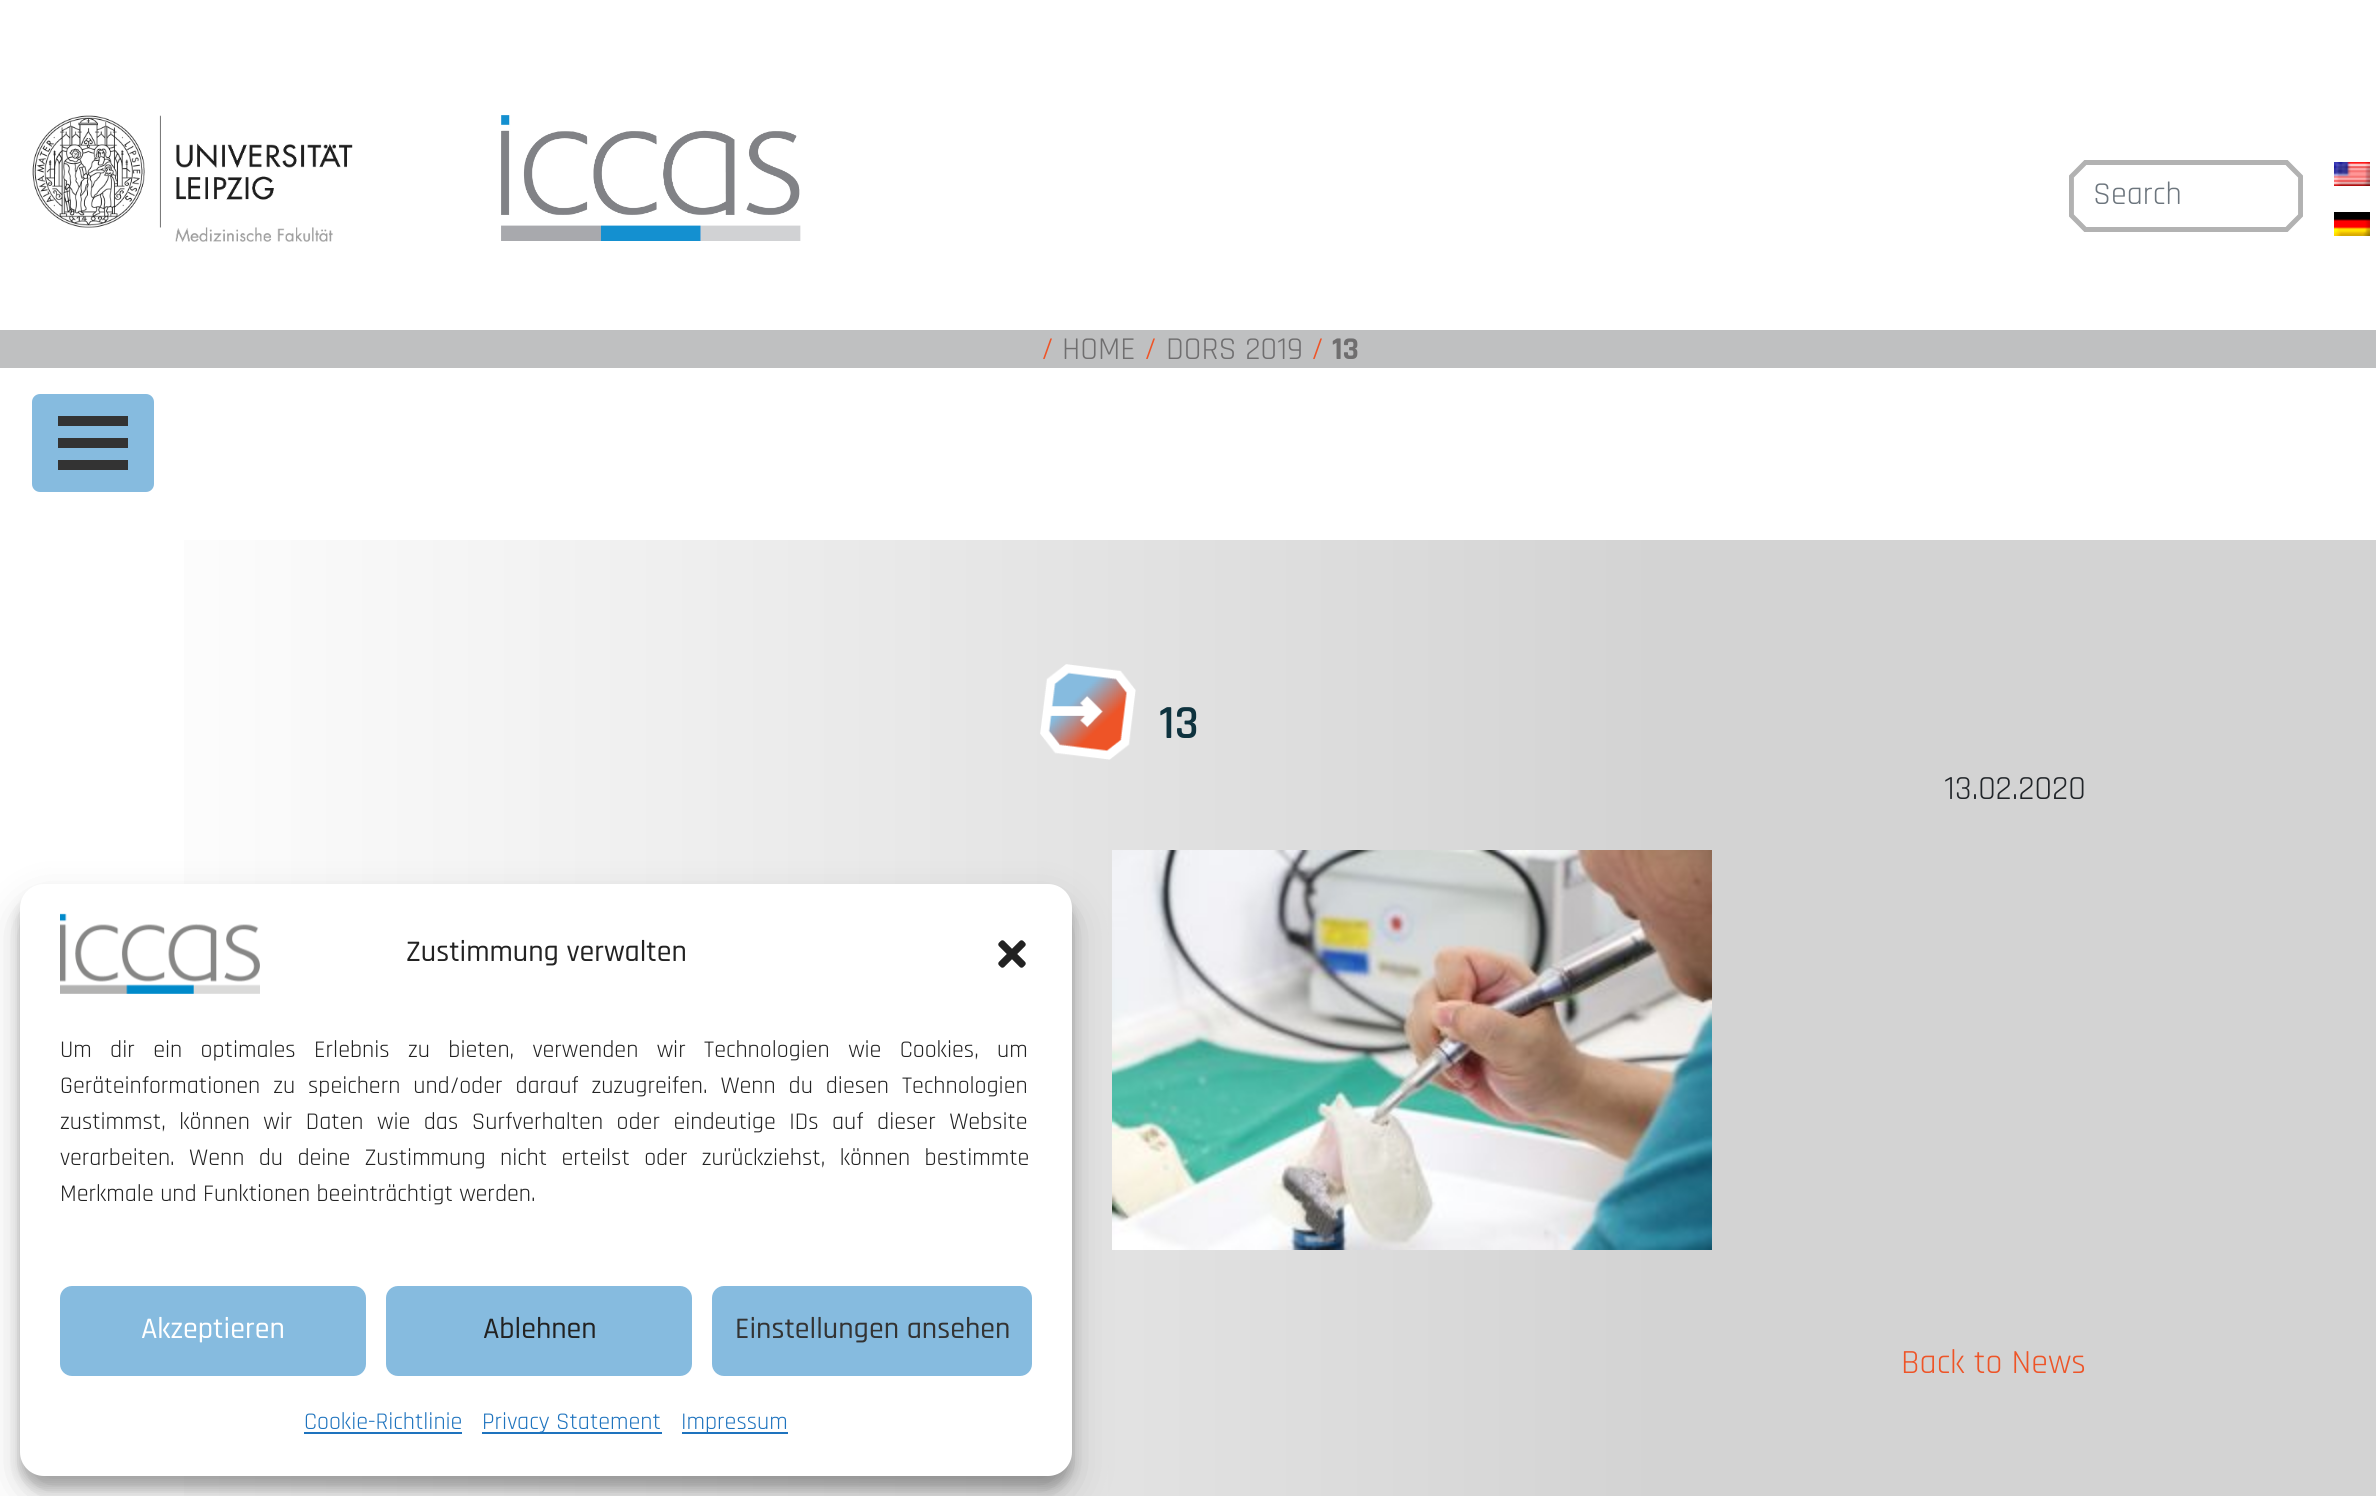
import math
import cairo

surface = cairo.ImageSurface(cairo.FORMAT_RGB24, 2376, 1496)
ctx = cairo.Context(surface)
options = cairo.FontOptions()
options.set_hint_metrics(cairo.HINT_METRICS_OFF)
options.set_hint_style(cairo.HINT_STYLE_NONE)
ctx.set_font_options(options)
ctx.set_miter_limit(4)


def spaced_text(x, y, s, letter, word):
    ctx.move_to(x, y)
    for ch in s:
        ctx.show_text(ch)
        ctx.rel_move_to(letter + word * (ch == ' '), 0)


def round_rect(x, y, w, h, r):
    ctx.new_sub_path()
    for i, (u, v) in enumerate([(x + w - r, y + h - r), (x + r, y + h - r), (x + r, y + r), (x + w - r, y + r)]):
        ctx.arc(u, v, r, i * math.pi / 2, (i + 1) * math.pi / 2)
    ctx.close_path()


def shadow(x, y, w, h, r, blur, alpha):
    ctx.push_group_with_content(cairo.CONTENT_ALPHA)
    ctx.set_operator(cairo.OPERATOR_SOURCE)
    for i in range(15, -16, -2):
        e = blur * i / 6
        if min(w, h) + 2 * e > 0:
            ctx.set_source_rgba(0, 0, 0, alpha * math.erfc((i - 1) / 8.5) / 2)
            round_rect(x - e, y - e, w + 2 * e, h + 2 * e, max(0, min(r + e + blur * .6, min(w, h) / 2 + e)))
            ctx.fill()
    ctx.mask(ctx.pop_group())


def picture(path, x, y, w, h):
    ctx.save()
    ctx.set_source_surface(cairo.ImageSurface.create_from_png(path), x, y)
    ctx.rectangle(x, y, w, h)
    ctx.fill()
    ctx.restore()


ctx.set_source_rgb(1, 1, 1)
ctx.paint()
picture("img1.png", 32, 115, 321, 127)
picture("img2.png", 501, 115, 300, 126)
picture("img3.png", 2069, 160, 234, 72)
ctx.select_font_face("Rajdhani")
ctx.set_font_size(32)
ctx.set_source_rgb(0.424, 0.459, 0.49)
ctx.move_to(2093, 204)
ctx.show_text("Search")
picture("img4.png", 2334, 162, 36, 24)
picture("img5.png", 2334, 212, 36, 24)
ctx.set_source_rgb(0.749, 0.753, 0.757)
ctx.rectangle(0, 330, 2376, 38)
ctx.fill()
ctx.set_source_rgb(0.933, 0.329, 0.153)
ctx.move_to(1041, 359)
ctx.show_text("/")
ctx.set_source_rgb(0.435, 0.431, 0.435)
ctx.move_to(1062, 359)
ctx.show_text("HOME")
ctx.set_source_rgb(0.933, 0.329, 0.153)
ctx.move_to(1144, 359)
ctx.show_text("/")
ctx.set_source_rgb(0.435, 0.431, 0.435)
ctx.move_to(1166, 359)
ctx.show_text("DORS 2019")
ctx.set_source_rgb(0.933, 0.329, 0.153)
ctx.move_to(1311, 359)
ctx.show_text("/")
ctx.select_font_face("Rajdhani", cairo.FONT_SLANT_NORMAL, cairo.FONT_WEIGHT_BOLD)
ctx.set_source_rgb(0.435, 0.431, 0.435)
ctx.move_to(1332, 359)
ctx.show_text("13")
ctx.set_source_rgb(0.525, 0.733, 0.875)
round_rect(33, 395, 120, 96, 7)
ctx.fill_preserve()
ctx.stroke()
ctx.set_source_rgb(0.2, 0.2, 0.2)
ctx.rectangle(58, 416, 70, 10)
ctx.fill()
ctx.rectangle(58, 438, 70, 10)
ctx.fill()
ctx.rectangle(58, 460, 70, 10)
ctx.fill()
gradient = cairo.LinearGradient(0, 1026, 2376, 1026)
gradient.add_color_stop_rgba(0.04, 1, 1, 1, 1)
gradient.add_color_stop_rgba(0.7, 0.827, 0.827, 0.827, 1)
ctx.set_source(gradient)
ctx.rectangle(184, 540, 2192, 956)
ctx.fill()
ctx.set_source_rgb(0, 0, 0)
shadow(20, 896, 1052, 592, 24, 6, 0.23)
picture("img9.png", 1112, 850, 600, 400)
shadow(20, 904, 1052, 592, 24, 20, 0.19)
ctx.set_source_rgb(1, 1, 1)
round_rect(20, 884, 1052, 592, 24)
ctx.fill()
picture("img6.png", 60, 913, 200, 81)
ctx.select_font_face("Rajdhani Medium")
ctx.set_font_size(30)
ctx.set_source_rgb(0.133, 0.133, 0.133)
ctx.move_to(406, 961)
ctx.show_text("Zustimmung verwalten")
picture("img7.png", 998, 940, 28, 28)
ctx.select_font_face("Rajdhani")
ctx.set_font_size(24)
spaced_text(60, 1057, "Um dir ein optimales Erlebnis zu bieten, verwenden wir Technologien wie Cookies, um", 0, 12)
spaced_text(60, 1093, "Geräteinformationen zu speichern und/oder darauf zuzugreifen. Wenn du diesen Technologien", 0, 6.5)
spaced_text(60, 1129, "zustimmst, können wir Daten wie das Surfverhalten oder eindeutige IDs auf dieser Website", 0, 7.1)
spaced_text(60, 1165, "verarbeiten. Wenn du deine Zustimmung nicht erteilst oder zurückziehst, können bestimmte", 0, 8)
ctx.move_to(60, 1201)
ctx.show_text("Merkmale und Funktionen beeinträchtigt werden.")
ctx.set_source_rgb(0.525, 0.733, 0.875)
round_rect(61, 1287, 304, 88, 11)
ctx.fill_preserve()
ctx.stroke()
ctx.select_font_face("Rajdhani Medium")
ctx.set_font_size(30)
ctx.set_source_rgb(1, 1, 1)
ctx.move_to(141, 1338)
ctx.show_text("Akzeptieren")
ctx.set_source_rgb(0.525, 0.733, 0.875)
round_rect(387, 1287, 304, 88, 11)
ctx.fill_preserve()
ctx.stroke()
ctx.set_source_rgb(0.133, 0.133, 0.133)
ctx.move_to(483, 1338)
ctx.show_text("Ablehnen")
ctx.set_source_rgb(0.525, 0.733, 0.875)
round_rect(713, 1287, 318, 88, 11)
ctx.fill_preserve()
ctx.stroke()
ctx.set_source_rgb(0.2, 0.2, 0.2)
ctx.move_to(735, 1338)
ctx.show_text("Einstellungen ansehen")
ctx.select_font_face("Rajdhani")
ctx.set_font_size(24)
ctx.set_source_rgb(0.118, 0.451, 0.745)
ctx.move_to(304, 1429)
ctx.show_text("Cookie-Richtlinie")
ctx.rectangle(304, 1432, 158, 2)
ctx.fill()
ctx.rectangle(482, 1432, 180, 2)
ctx.fill()
ctx.move_to(482, 1429)
ctx.show_text("Privacy Statement")
ctx.rectangle(682, 1432, 106, 2)
ctx.fill()
ctx.move_to(681, 1429)
ctx.show_text("Impressum")
picture("img8.png", 1040, 664, 96, 96)
ctx.select_font_face("Rajdhani SemiBold")
ctx.set_font_size(48)
ctx.set_source_rgb(0.055, 0.196, 0.243)
ctx.move_to(1159, 738)
ctx.show_text("13")
ctx.select_font_face("Rajdhani")
ctx.set_font_size(34)
ctx.set_source_rgb(0.129, 0.145, 0.161)
ctx.move_to(1944, 799)
ctx.show_text("13.02.2020")
ctx.set_source_rgb(0.933, 0.329, 0.153)
ctx.move_to(1901, 1373)
ctx.show_text("Back to News")
surface.write_to_png("page.png")
